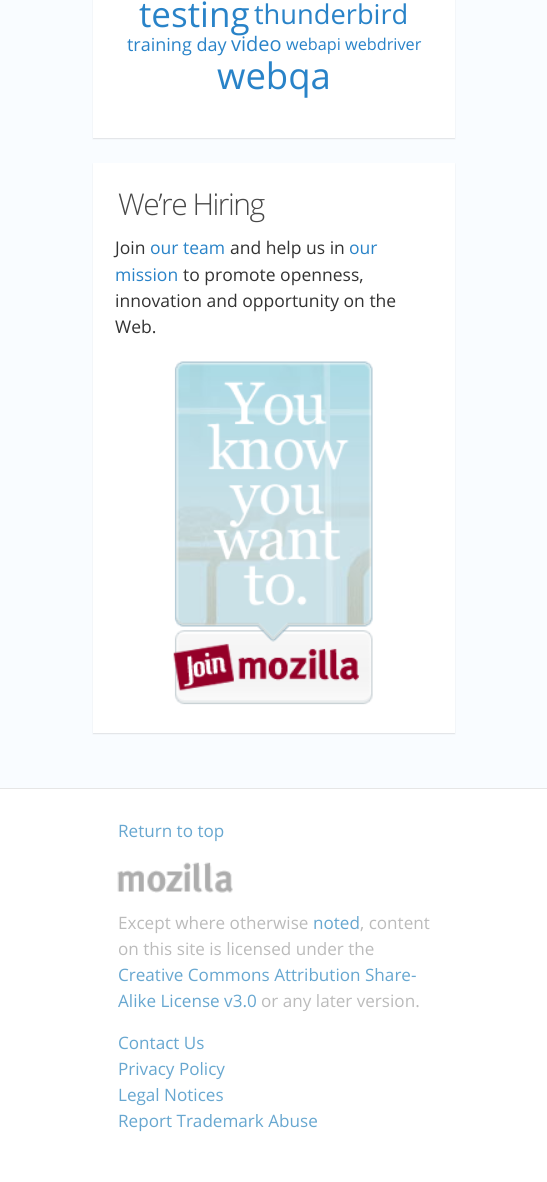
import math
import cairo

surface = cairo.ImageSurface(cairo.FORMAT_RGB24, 547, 1182)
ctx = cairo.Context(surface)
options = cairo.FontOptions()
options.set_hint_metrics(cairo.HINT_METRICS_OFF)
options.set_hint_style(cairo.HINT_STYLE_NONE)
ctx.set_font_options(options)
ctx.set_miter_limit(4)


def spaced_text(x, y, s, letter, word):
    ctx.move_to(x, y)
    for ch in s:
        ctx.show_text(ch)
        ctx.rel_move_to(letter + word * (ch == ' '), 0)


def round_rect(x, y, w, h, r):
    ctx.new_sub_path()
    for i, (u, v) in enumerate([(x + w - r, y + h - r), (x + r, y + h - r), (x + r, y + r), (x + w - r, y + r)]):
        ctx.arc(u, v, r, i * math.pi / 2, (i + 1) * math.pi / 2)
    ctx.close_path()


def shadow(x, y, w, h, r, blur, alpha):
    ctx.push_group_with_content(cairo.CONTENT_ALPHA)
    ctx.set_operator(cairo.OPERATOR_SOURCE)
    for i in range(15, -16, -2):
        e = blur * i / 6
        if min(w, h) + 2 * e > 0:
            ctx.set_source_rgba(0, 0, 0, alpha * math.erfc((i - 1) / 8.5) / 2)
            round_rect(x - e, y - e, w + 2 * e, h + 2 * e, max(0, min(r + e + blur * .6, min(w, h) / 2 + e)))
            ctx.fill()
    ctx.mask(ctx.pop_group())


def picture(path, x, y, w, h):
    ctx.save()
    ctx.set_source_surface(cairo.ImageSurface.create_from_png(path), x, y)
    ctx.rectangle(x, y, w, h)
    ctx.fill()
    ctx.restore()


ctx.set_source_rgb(1, 1, 1)
ctx.paint()
ctx.set_source_rgb(0.976, 0.988, 1)
ctx.rectangle(0, 0, 547, 788)
ctx.fill()
ctx.set_source_rgb(0, 0, 0)
shadow(93, -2, 362, 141, 0, 0.5, 0.1)
ctx.set_source_rgb(1, 1, 1)
ctx.rectangle(93, 0, 362, 138)
ctx.fill()
ctx.select_font_face("Open Sans")
ctx.set_font_size(35)
ctx.set_source_rgb(0.161, 0.514, 0.784)
ctx.move_to(139, 27)
ctx.show_text("testing")
ctx.set_font_size(27.25)
ctx.move_to(254, 24)
ctx.show_text("thunderbird")
ctx.set_font_size(18)
ctx.move_to(127, 51)
ctx.show_text("training day")
ctx.set_font_size(20)
ctx.move_to(231, 51)
ctx.show_text("video")
ctx.set_font_size(16.25)
ctx.move_to(286, 50)
ctx.show_text("webapi webdriver")
ctx.set_font_size(36.5)
ctx.move_to(217, 89)
ctx.show_text("webqa")
ctx.set_source_rgb(0, 0, 0)
shadow(93, 164, 362, 570, 0, 0.5, 0.1)
ctx.set_source_rgb(1, 1, 1)
ctx.rectangle(93, 163, 362, 570)
ctx.fill()
ctx.select_font_face("Open Sans Light")
ctx.set_font_size(30)
ctx.set_source_rgb(0.282, 0.282, 0.282)
spaced_text(118, 215, "We’re Hiring", -1.5, 0)
ctx.select_font_face("Open Sans")
ctx.set_font_size(17.5)
ctx.set_source_rgb(0.2, 0.2, 0.2)
ctx.move_to(115, 254)
ctx.show_text("Join")
ctx.set_source_rgb(0.161, 0.514, 0.784)
ctx.move_to(150, 254)
ctx.show_text("our team")
ctx.set_source_rgb(0.2, 0.2, 0.2)
ctx.move_to(230, 254)
ctx.show_text("and help us in")
ctx.set_source_rgb(0.161, 0.514, 0.784)
ctx.move_to(349, 254)
ctx.show_text("our")
ctx.move_to(115, 281)
ctx.show_text("mission")
ctx.set_source_rgb(0.2, 0.2, 0.2)
ctx.move_to(183, 281)
ctx.show_text("to promote openness,")
ctx.move_to(115, 307)
ctx.show_text("innovation and opportunity on the")
ctx.move_to(115, 333)
ctx.show_text("Web.")
picture("img1.png", 173, 361, 200, 344)
ctx.set_source_rgb(0.902, 0.902, 0.902)
ctx.rectangle(0, 788, 547, 1)
ctx.fill()
ctx.set_font_size(17.1)
ctx.set_source_rgb(0.404, 0.655, 0.816)
ctx.move_to(118, 837)
ctx.show_text("Return to top")
picture("img2.png", 117, 862, 116, 31)
ctx.set_source_rgb(0.733, 0.733, 0.733)
ctx.move_to(118, 929)
ctx.show_text("Except where otherwise")
ctx.set_source_rgb(0.404, 0.655, 0.816)
ctx.move_to(313, 929)
ctx.show_text("noted")
ctx.set_source_rgb(0.733, 0.733, 0.733)
ctx.move_to(360, 929)
ctx.show_text(", content")
ctx.move_to(118, 955)
ctx.show_text("on this site is licensed under the")
ctx.set_source_rgb(0.404, 0.655, 0.816)
ctx.move_to(118, 981)
ctx.show_text("Creative Commons Attribution Share-")
ctx.move_to(118, 1007)
ctx.show_text("Alike License v3.0")
ctx.set_source_rgb(0.733, 0.733, 0.733)
ctx.move_to(261, 1007)
ctx.show_text("or any later version.")
ctx.set_source_rgb(0.404, 0.655, 0.816)
ctx.move_to(118, 1049)
ctx.show_text("Contact Us")
ctx.move_to(118, 1075)
ctx.show_text("Privacy Policy")
ctx.move_to(118, 1101)
ctx.show_text("Legal Notices")
ctx.move_to(118, 1127)
ctx.show_text("Report Trademark Abuse")
surface.write_to_png("page.png")
